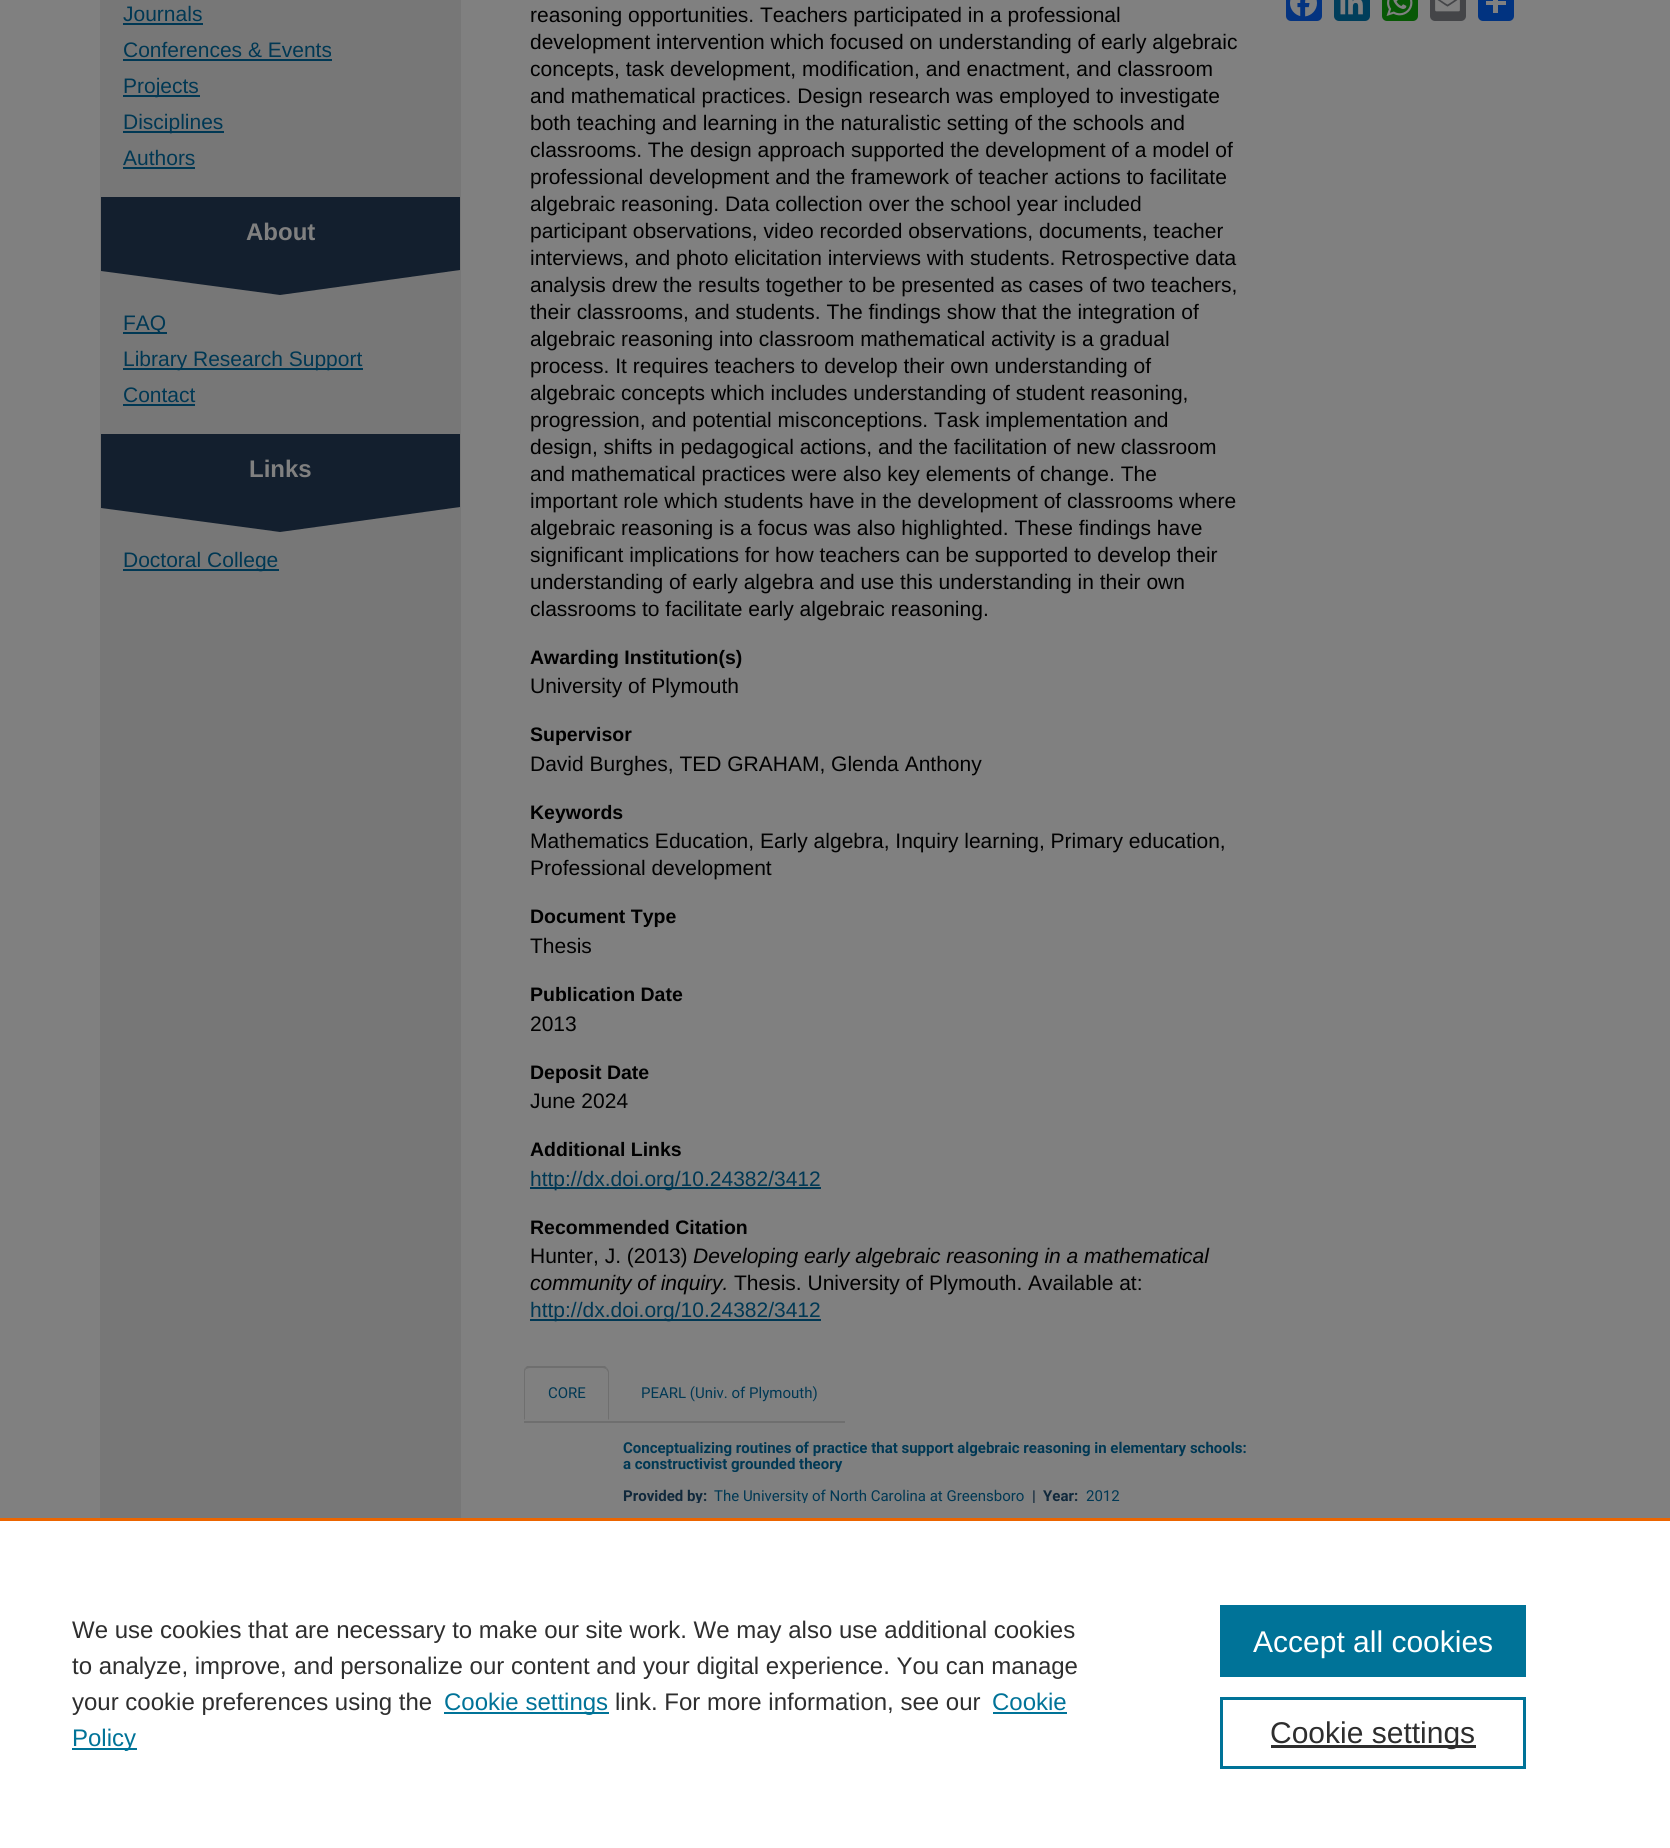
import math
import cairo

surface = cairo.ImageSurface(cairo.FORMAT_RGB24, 1670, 1848)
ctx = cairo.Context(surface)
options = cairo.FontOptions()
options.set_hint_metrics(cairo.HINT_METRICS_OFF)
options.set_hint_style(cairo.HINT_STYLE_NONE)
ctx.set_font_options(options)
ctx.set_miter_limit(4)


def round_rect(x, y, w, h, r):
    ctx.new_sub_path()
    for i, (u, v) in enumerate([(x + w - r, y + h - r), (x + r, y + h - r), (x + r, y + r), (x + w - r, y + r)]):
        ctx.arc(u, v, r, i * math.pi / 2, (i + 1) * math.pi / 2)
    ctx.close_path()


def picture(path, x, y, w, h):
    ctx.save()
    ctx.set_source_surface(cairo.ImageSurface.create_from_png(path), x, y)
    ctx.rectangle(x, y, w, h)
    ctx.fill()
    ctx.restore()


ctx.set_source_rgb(0.502, 0.502, 0.502)
ctx.paint()
ctx.set_source_rgb(0.467, 0.467, 0.467)
ctx.rectangle(100, 0, 361, 1518)
ctx.fill()
ctx.select_font_face("Liberation Sans")
ctx.set_font_size(21)
ctx.set_source_rgb(0, 0.22, 0.329)
ctx.move_to(123, 21)
ctx.show_text("Journals")
ctx.rectangle(123, 23, 80, 2)
ctx.fill()
ctx.move_to(123, 57)
ctx.show_text("Conferences & Events")
ctx.rectangle(123, 59, 209, 2)
ctx.fill()
ctx.rectangle(123, 95, 77, 2)
ctx.fill()
ctx.move_to(123, 93)
ctx.show_text("Projects")
ctx.rectangle(123, 131, 101, 2)
ctx.fill()
ctx.move_to(123, 129)
ctx.show_text("Disciplines")
ctx.move_to(123, 165)
ctx.show_text("Authors")
ctx.rectangle(123, 167, 72, 2)
ctx.fill()
ctx.set_source_rgb(0.078, 0.122, 0.18)
ctx.new_path()
ctx.move_to(101, 197)
ctx.line_to(460, 197)
ctx.line_to(460, 270)
ctx.line_to(280, 295)
ctx.line_to(101, 271)
ctx.close_path()
ctx.fill()
ctx.select_font_face("Liberation Sans", cairo.FONT_SLANT_NORMAL, cairo.FONT_WEIGHT_BOLD)
ctx.set_font_size(24)
ctx.set_source_rgb(0.502, 0.502, 0.502)
ctx.move_to(246, 240)
ctx.show_text("About")
ctx.set_source_rgb(0, 0.22, 0.329)
ctx.rectangle(123, 332, 44, 2)
ctx.fill()
ctx.select_font_face("Liberation Sans")
ctx.set_font_size(21)
ctx.move_to(123, 330)
ctx.show_text("FAQ")
ctx.rectangle(123, 368, 240, 2)
ctx.fill()
ctx.move_to(123, 366)
ctx.show_text("Library Research Support")
ctx.move_to(123, 402)
ctx.show_text("Contact")
ctx.rectangle(123, 404, 72, 2)
ctx.fill()
ctx.set_source_rgb(0.078, 0.122, 0.18)
ctx.new_path()
ctx.move_to(101, 434)
ctx.line_to(460, 434)
ctx.line_to(460, 507)
ctx.line_to(280, 532)
ctx.line_to(101, 508)
ctx.close_path()
ctx.fill()
ctx.select_font_face("Liberation Sans", cairo.FONT_SLANT_NORMAL, cairo.FONT_WEIGHT_BOLD)
ctx.set_font_size(24)
ctx.set_source_rgb(0.502, 0.502, 0.502)
ctx.move_to(249, 477)
ctx.show_text("Links")
ctx.set_source_rgb(0, 0.22, 0.329)
ctx.rectangle(123, 569, 156, 2)
ctx.fill()
ctx.select_font_face("Liberation Sans")
ctx.set_font_size(21)
ctx.move_to(123, 567)
ctx.show_text("Doctoral College")
ctx.set_source_rgb(0, 0, 0)
ctx.move_to(530, 22)
ctx.show_text("reasoning opportunities. Teachers participated in a professional")
ctx.move_to(530, 49)
ctx.show_text("development intervention which focused on understanding of early algebraic")
ctx.move_to(530, 76)
ctx.show_text("concepts, task development, modification, and enactment, and classroom")
ctx.move_to(530, 103)
ctx.show_text("and mathematical practices. Design research was employed to investigate")
ctx.move_to(530, 130)
ctx.show_text("both teaching and learning in the naturalistic setting of the schools and")
ctx.move_to(530, 157)
ctx.show_text("classrooms. The design approach supported the development of a model of")
ctx.move_to(530, 184)
ctx.show_text("professional development and the framework of teacher actions to facilitate")
ctx.move_to(530, 211)
ctx.show_text("algebraic reasoning. Data collection over the school year included")
ctx.move_to(530, 238)
ctx.show_text("participant observations, video recorded observations, documents, teacher")
ctx.move_to(530, 265)
ctx.show_text("interviews, and photo elicitation interviews with students. Retrospective data")
ctx.move_to(530, 292)
ctx.show_text("analysis drew the results together to be presented as cases of two teachers,")
ctx.move_to(530, 319)
ctx.show_text("their classrooms, and students. The findings show that the integration of")
ctx.move_to(530, 346)
ctx.show_text("algebraic reasoning into classroom mathematical activity is a gradual")
ctx.move_to(530, 373)
ctx.show_text("process. It requires teachers to develop their own understanding of")
ctx.move_to(530, 400)
ctx.show_text("algebraic concepts which includes understanding of student reasoning,")
ctx.move_to(530, 427)
ctx.show_text("progression, and potential misconceptions. Task implementation and")
ctx.move_to(530, 454)
ctx.show_text("design, shifts in pedagogical actions, and the facilitation of new classroom")
ctx.move_to(530, 481)
ctx.show_text("and mathematical practices were also key elements of change. The")
ctx.move_to(530, 508)
ctx.show_text("important role which students have in the development of classrooms where")
ctx.move_to(530, 535)
ctx.show_text("algebraic reasoning is a focus was also highlighted. These findings have")
ctx.move_to(530, 562)
ctx.show_text("significant implications for how teachers can be supported to develop their")
ctx.move_to(530, 589)
ctx.show_text("understanding of early algebra and use this understanding in their own")
ctx.move_to(530, 616)
ctx.show_text("classrooms to facilitate early algebraic reasoning.")
ctx.select_font_face("Liberation Sans", cairo.FONT_SLANT_NORMAL, cairo.FONT_WEIGHT_BOLD)
ctx.set_font_size(19.5)
ctx.move_to(530, 664)
ctx.show_text("Awarding Institution(s)")
ctx.select_font_face("Liberation Sans")
ctx.set_font_size(21)
ctx.move_to(530, 693)
ctx.show_text("University of Plymouth")
ctx.select_font_face("Liberation Sans", cairo.FONT_SLANT_NORMAL, cairo.FONT_WEIGHT_BOLD)
ctx.set_font_size(19.5)
ctx.move_to(530, 741)
ctx.show_text("Supervisor")
ctx.select_font_face("Liberation Sans")
ctx.set_font_size(21)
ctx.move_to(530, 771)
ctx.show_text("David Burghes, TED GRAHAM, Glenda Anthony")
ctx.select_font_face("Liberation Sans", cairo.FONT_SLANT_NORMAL, cairo.FONT_WEIGHT_BOLD)
ctx.set_font_size(19.5)
ctx.move_to(530, 819)
ctx.show_text("Keywords")
ctx.select_font_face("Liberation Sans")
ctx.set_font_size(21)
ctx.move_to(530, 848)
ctx.show_text("Mathematics Education, Early algebra, Inquiry learning, Primary education,")
ctx.move_to(530, 875)
ctx.show_text("Professional development")
ctx.select_font_face("Liberation Sans", cairo.FONT_SLANT_NORMAL, cairo.FONT_WEIGHT_BOLD)
ctx.set_font_size(19.5)
ctx.move_to(530, 923)
ctx.show_text("Document Type")
ctx.select_font_face("Liberation Sans")
ctx.set_font_size(21)
ctx.move_to(530, 953)
ctx.show_text("Thesis")
ctx.select_font_face("Liberation Sans", cairo.FONT_SLANT_NORMAL, cairo.FONT_WEIGHT_BOLD)
ctx.set_font_size(19.5)
ctx.move_to(530, 1001)
ctx.show_text("Publication Date")
ctx.select_font_face("Liberation Sans")
ctx.set_font_size(21)
ctx.move_to(530, 1031)
ctx.show_text("2013")
ctx.select_font_face("Liberation Sans", cairo.FONT_SLANT_NORMAL, cairo.FONT_WEIGHT_BOLD)
ctx.set_font_size(19.5)
ctx.move_to(530, 1079)
ctx.show_text("Deposit Date")
ctx.select_font_face("Liberation Sans")
ctx.set_font_size(21)
ctx.move_to(530, 1108)
ctx.show_text("June 2024")
ctx.select_font_face("Liberation Sans", cairo.FONT_SLANT_NORMAL, cairo.FONT_WEIGHT_BOLD)
ctx.set_font_size(19.5)
ctx.move_to(530, 1156)
ctx.show_text("Additional Links")
ctx.set_source_rgb(0, 0.22, 0.329)
ctx.rectangle(530, 1187, 291, 2)
ctx.fill()
ctx.select_font_face("Liberation Sans")
ctx.set_font_size(21)
ctx.move_to(530, 1186)
ctx.show_text("http://dx.doi.org/10.24382/3412")
ctx.select_font_face("Liberation Sans", cairo.FONT_SLANT_NORMAL, cairo.FONT_WEIGHT_BOLD)
ctx.set_font_size(19.5)
ctx.set_source_rgb(0, 0, 0)
ctx.move_to(530, 1234)
ctx.show_text("Recommended Citation")
ctx.select_font_face("Liberation Sans")
ctx.set_font_size(21)
ctx.move_to(530, 1263)
ctx.show_text("Hunter, J. (2013)")
ctx.select_font_face("Liberation Sans", cairo.FONT_SLANT_ITALIC)
ctx.move_to(693, 1263)
ctx.show_text("Developing early algebraic reasoning in a mathematical")
ctx.move_to(530, 1290)
ctx.show_text("community of inquiry.")
ctx.select_font_face("Liberation Sans")
ctx.move_to(734, 1290)
ctx.show_text("Thesis. University of Plymouth. Available at:")
ctx.set_source_rgb(0, 0.22, 0.329)
ctx.rectangle(530, 1319, 291, 2)
ctx.fill()
ctx.move_to(530, 1317)
ctx.show_text("http://dx.doi.org/10.24382/3412")
ctx.set_source_rgb(0.016, 0.2, 0.502)
round_rect(1286, -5, 36, 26, 5)
ctx.fill()
picture("img1.png", 1290, 0, 27, 17)
ctx.set_source_rgb(0, 0.243, 0.357)
round_rect(1334, -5, 36, 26, 5)
ctx.fill()
picture("img2.png", 1340, 0, 23, 15)
ctx.set_source_rgb(0.035, 0.345, 0.02)
round_rect(1382, -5, 36, 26, 5)
ctx.fill()
picture("img3.png", 1386, 0, 27, 16)
ctx.set_source_rgb(0.267, 0.271, 0.282)
round_rect(1430, -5, 36, 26, 5)
ctx.fill()
picture("img4.png", 1435, 0, 25, 12)
ctx.set_source_rgb(0.004, 0.2, 0.502)
round_rect(1478, -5, 36, 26, 5)
ctx.fill()
ctx.set_source_rgb(0.502, 0.502, 0.502)
ctx.rectangle(1493, 0, 5, 13)
ctx.fill()
ctx.rectangle(1486, 1, 20, 4)
ctx.fill()
ctx.set_source_rgb(0.435, 0.435, 0.435)
ctx.rectangle(524, 1421, 321, 2)
ctx.fill()
ctx.new_path()
ctx.move_to(530, 1368)
ctx.curve_to(528, 1368, 527, 1369, 526, 1369)
ctx.line_to(525, 1368)
ctx.line_to(527, 1366)
ctx.line_to(605, 1366)
ctx.line_to(607, 1368)
ctx.line_to(606, 1369)
ctx.line_to(603, 1368)
ctx.close_path()
ctx.fill()
ctx.new_path()
ctx.move_to(609, 1420)
ctx.line_to(609, 1372)
ctx.curve_to(609, 1371, 608, 1369, 607, 1368)
ctx.line_to(606, 1369)
ctx.line_to(608, 1372)
ctx.line_to(608, 1419)
ctx.close_path()
ctx.fill()
ctx.new_path()
ctx.move_to(524, 1420)
ctx.line_to(525, 1419)
ctx.line_to(525, 1371)
ctx.line_to(526, 1369)
ctx.line_to(525, 1368)
ctx.curve_to(524, 1369, 524, 1371, 524, 1372)
ctx.close_path()
ctx.fill()
ctx.select_font_face("Roboto")
ctx.set_font_size(15)
ctx.set_source_rgb(0, 0.22, 0.329)
ctx.move_to(548, 1398)
ctx.show_text("CORE")
ctx.move_to(641, 1398)
ctx.show_text("PEARL (Univ. of Plymouth)")
ctx.select_font_face("Roboto", cairo.FONT_SLANT_NORMAL, cairo.FONT_WEIGHT_BOLD)
ctx.move_to(623, 1453)
ctx.show_text("Conceptualizing routines of practice that support algebraic reasoning in elementary schools:")
ctx.save()
ctx.rectangle(623, 1439, 631, 33)
ctx.clip()
ctx.move_to(623, 1469)
ctx.show_text("a constructivist grounded theory")
ctx.restore()
ctx.save()
ctx.rectangle(623, 1487, 631, 16)
ctx.clip()
ctx.set_source_rgb(0.063, 0.157, 0.231)
ctx.move_to(623, 1501)
ctx.show_text("Provided by:")
ctx.select_font_face("Roboto")
ctx.set_source_rgb(0, 0.22, 0.329)
ctx.move_to(714, 1501)
ctx.show_text("The University of North Carolina at Greensboro")
ctx.restore()
ctx.set_source_rgb(0.063, 0.157, 0.231)
ctx.move_to(1032, 1501)
ctx.show_text("|")
ctx.move_to(1043, 1501)
ctx.show_text("Year:")
ctx.select_font_face("Roboto")
ctx.set_source_rgb(0, 0.22, 0.329)
ctx.move_to(1086, 1501)
ctx.show_text("2012")
ctx.set_source_rgb(1, 1, 1)
ctx.rectangle(0, 1521, 1670, 327)
ctx.fill()
ctx.set_source_rgb(0.922, 0.396, 0)
ctx.rectangle(0, 1518, 1670, 3)
ctx.fill()
ctx.select_font_face("Liberation Sans")
ctx.set_font_size(24)
ctx.set_source_rgb(0.18, 0.18, 0.18)
ctx.move_to(72, 1638)
ctx.show_text("We use cookies that are necessary to make our site work. We may also use additional cookies")
ctx.move_to(72, 1674)
ctx.show_text("to analyze, improve, and personalize our content and your digital experience. You can manage")
ctx.move_to(72, 1710)
ctx.show_text("your cookie preferences using the")
ctx.set_source_rgb(0, 0.451, 0.596)
ctx.rectangle(444, 1712, 165, 2)
ctx.fill()
ctx.move_to(444, 1710)
ctx.show_text("Cookie settings")
ctx.set_source_rgb(0.18, 0.18, 0.18)
ctx.move_to(615, 1710)
ctx.show_text("link. For more information, see our")
ctx.set_source_rgb(0, 0.451, 0.596)
ctx.move_to(992, 1710)
ctx.show_text("Cookie")
ctx.rectangle(993, 1712, 74, 2)
ctx.fill()
ctx.rectangle(72, 1748, 65, 2)
ctx.fill()
ctx.move_to(72, 1746)
ctx.show_text("Policy")
ctx.rectangle(1220, 1605, 306, 72)
ctx.fill()
ctx.set_font_size(30)
ctx.set_source_rgb(1, 1, 1)
ctx.move_to(1253, 1652)
ctx.show_text("Accept all cookies")
ctx.rectangle(1221.5, 1698.5, 303, 69)
ctx.set_source_rgb(0, 0.451, 0.596)
ctx.set_line_width(3)
ctx.stroke()
ctx.set_source_rgb(0.18, 0.18, 0.18)
ctx.rectangle(1271, 1745, 205, 3)
ctx.fill()
ctx.move_to(1270, 1743)
ctx.show_text("Cookie settings")
surface.write_to_png("page.png")
